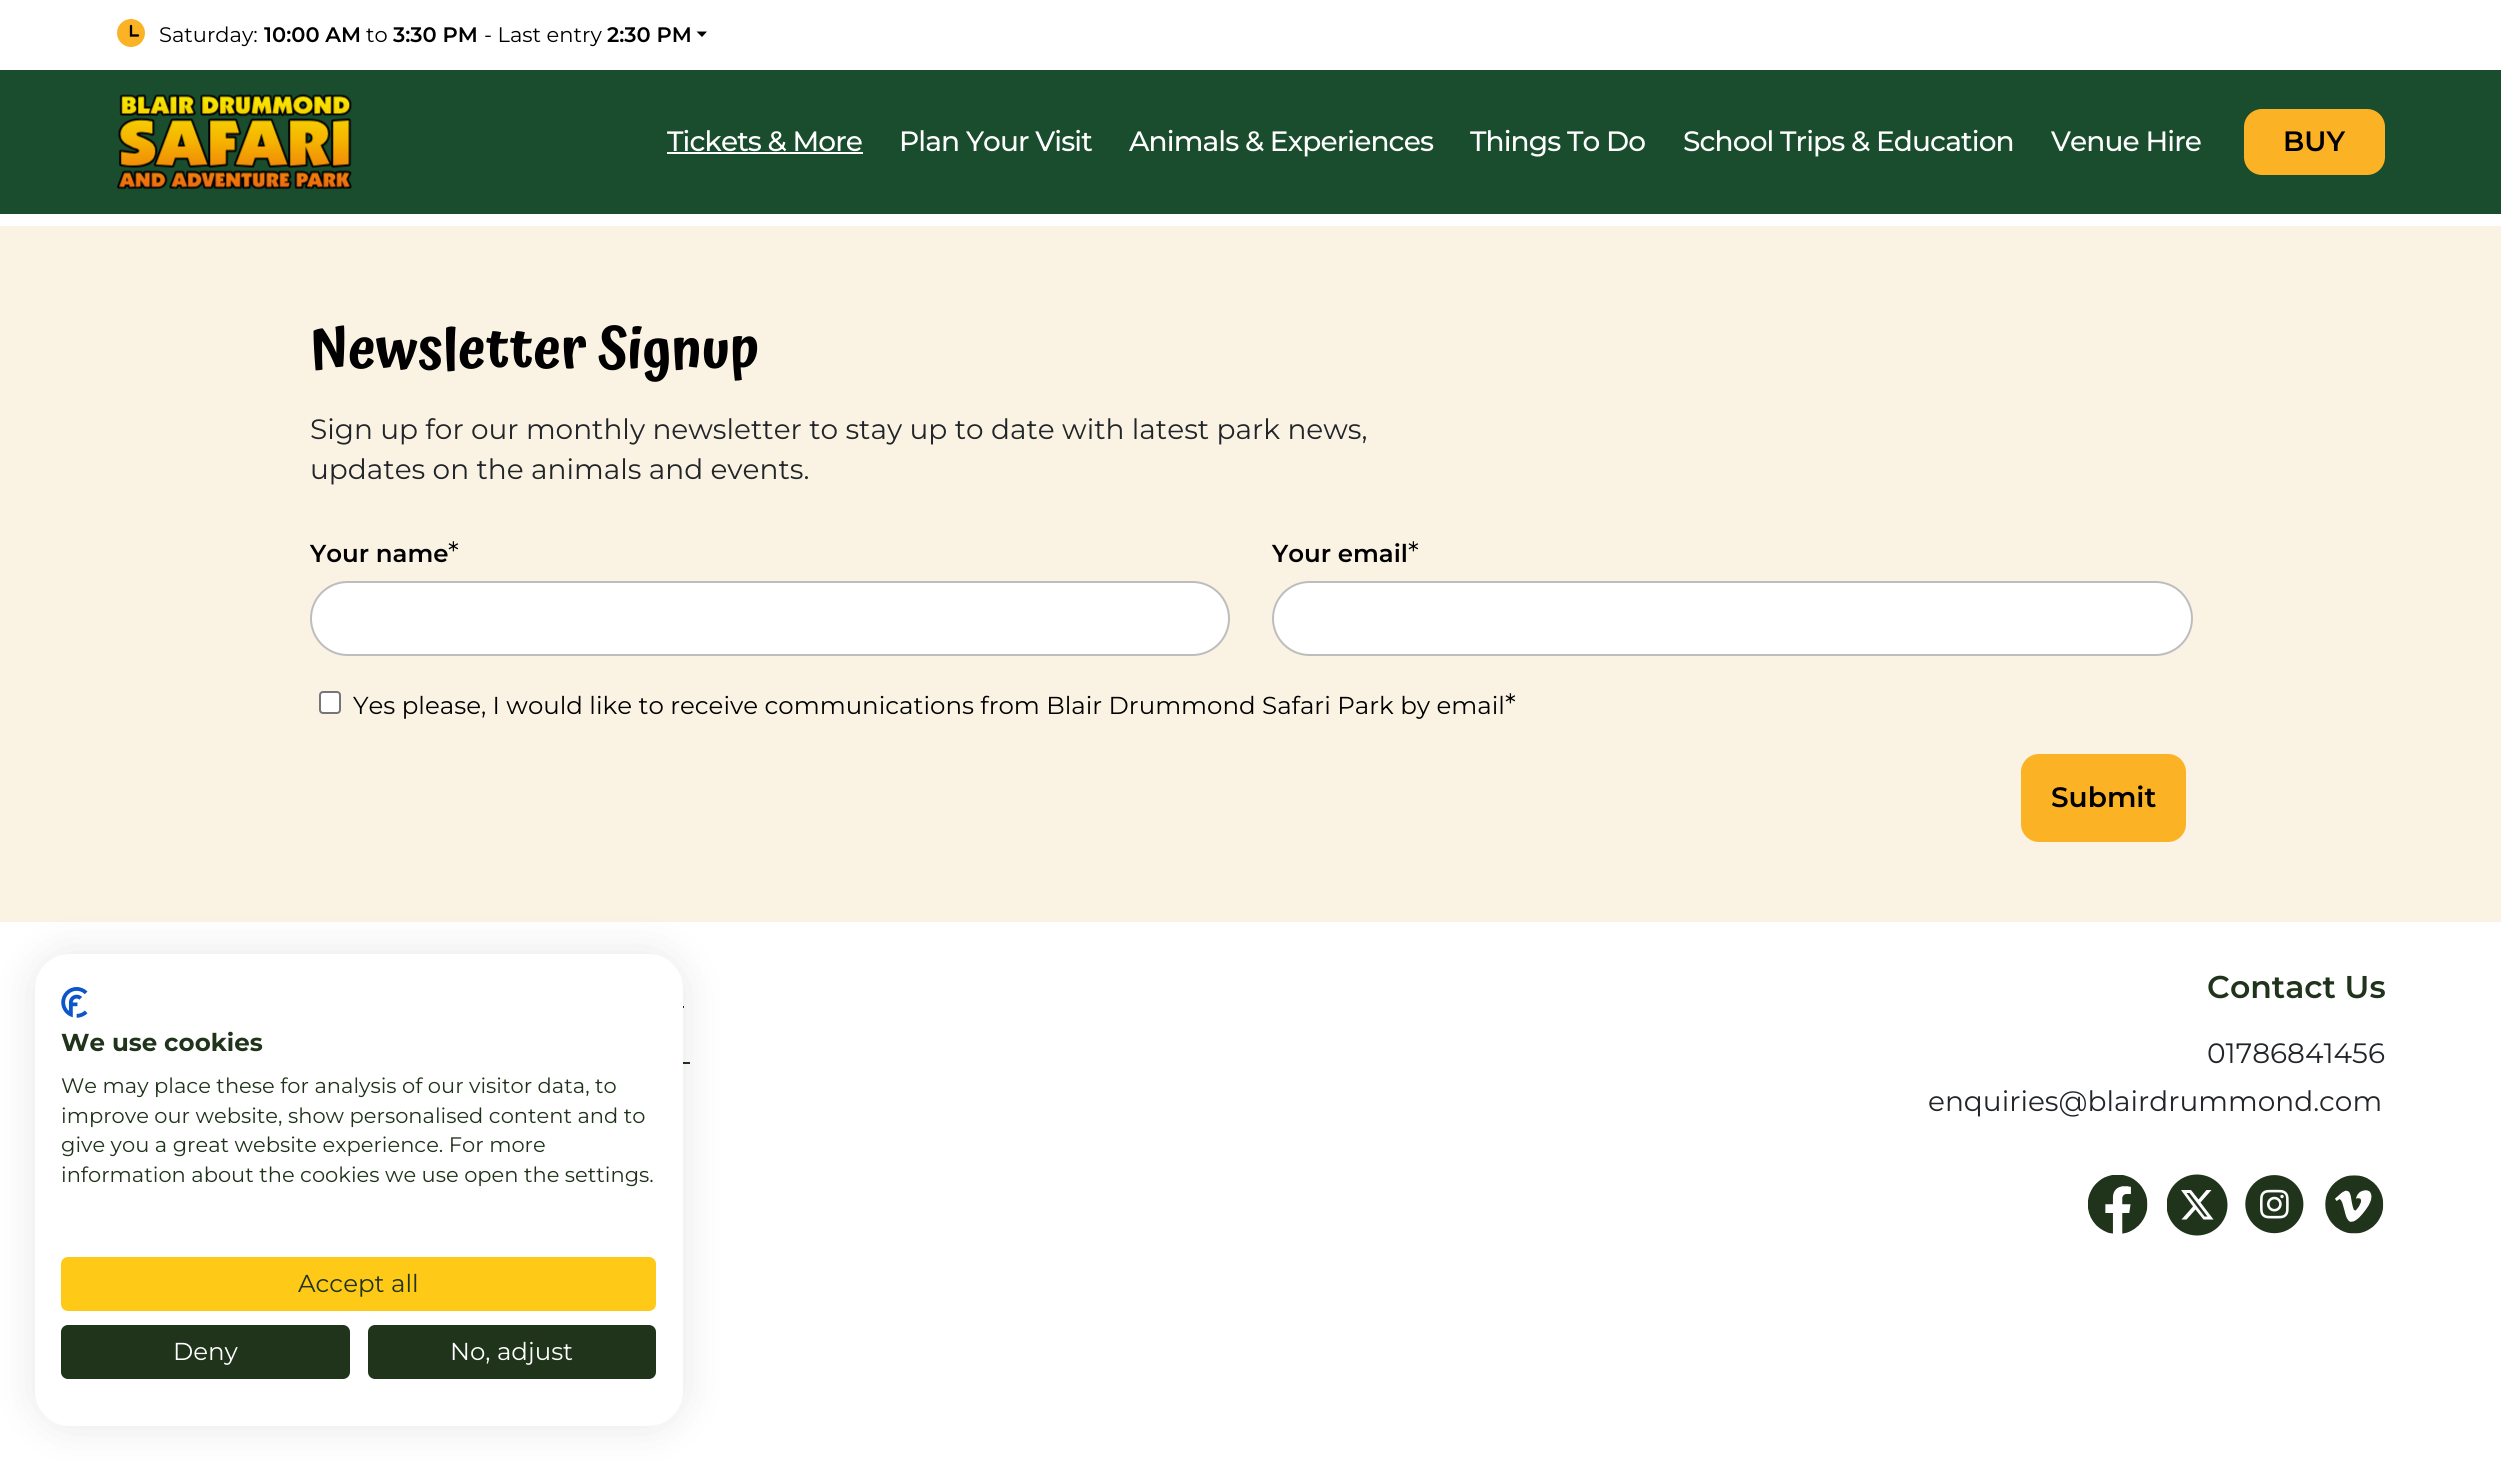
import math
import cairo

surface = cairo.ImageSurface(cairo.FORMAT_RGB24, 2501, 1460)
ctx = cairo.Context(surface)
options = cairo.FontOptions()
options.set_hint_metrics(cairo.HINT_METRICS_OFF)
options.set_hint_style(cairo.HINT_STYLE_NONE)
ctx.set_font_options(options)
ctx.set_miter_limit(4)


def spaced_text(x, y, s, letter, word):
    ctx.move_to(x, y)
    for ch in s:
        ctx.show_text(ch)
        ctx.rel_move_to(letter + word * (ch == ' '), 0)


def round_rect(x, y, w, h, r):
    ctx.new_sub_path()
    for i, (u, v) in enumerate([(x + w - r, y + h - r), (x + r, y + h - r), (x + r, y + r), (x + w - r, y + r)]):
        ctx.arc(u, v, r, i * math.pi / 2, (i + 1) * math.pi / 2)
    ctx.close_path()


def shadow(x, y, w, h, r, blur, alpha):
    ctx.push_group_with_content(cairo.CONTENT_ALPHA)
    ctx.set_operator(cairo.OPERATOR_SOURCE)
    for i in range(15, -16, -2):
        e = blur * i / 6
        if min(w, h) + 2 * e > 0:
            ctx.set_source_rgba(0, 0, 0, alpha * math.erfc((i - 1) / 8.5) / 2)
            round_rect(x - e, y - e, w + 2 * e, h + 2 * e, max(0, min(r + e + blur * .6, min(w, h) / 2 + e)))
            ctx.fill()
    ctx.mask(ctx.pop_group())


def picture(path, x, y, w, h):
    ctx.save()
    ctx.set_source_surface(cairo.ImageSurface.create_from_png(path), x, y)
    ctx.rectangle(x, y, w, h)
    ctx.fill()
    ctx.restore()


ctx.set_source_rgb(1, 1, 1)
ctx.paint()
ctx.set_source_rgb(0.984, 0.698, 0.141)
ctx.arc(131, 33, 14, 0, 2 * math.pi)
ctx.fill()
ctx.new_path()
ctx.move_to(131, 26)
ctx.line_to(131, 35.5)
ctx.line_to(138, 35.5)
ctx.set_source_rgb(0, 0, 0)
ctx.set_line_width(2.3)
ctx.set_line_cap(cairo.LINE_CAP_ROUND)
ctx.stroke()
ctx.select_font_face("Montserrat Thin")
ctx.set_font_size(21)
ctx.move_to(159, 42)
ctx.show_text("Saturday:")
ctx.select_font_face("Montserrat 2 Thin")
ctx.move_to(264, 42)
ctx.show_text("10:00 AM")
ctx.select_font_face("Montserrat Thin")
ctx.move_to(366, 42)
ctx.show_text("to")
ctx.select_font_face("Montserrat 2 Thin")
ctx.move_to(393, 42)
ctx.show_text("3:30 PM")
ctx.select_font_face("Montserrat Thin")
ctx.move_to(484, 42)
ctx.show_text("- Last entry")
ctx.select_font_face("Montserrat 2 Thin")
ctx.move_to(607, 42)
ctx.show_text("2:30 PM")
ctx.new_path()
ctx.move_to(696.5, 31.5)
ctx.line_to(707, 31.5)
ctx.line_to(702, 37)
ctx.close_path()
ctx.fill()
ctx.set_source_rgb(0.102, 0.302, 0.18)
ctx.rectangle(0, 70, 2501, 144)
ctx.fill()
picture("img1.png", 117, 94, 235, 96)
ctx.select_font_face("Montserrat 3 Thin")
ctx.set_font_size(28)
ctx.set_source_rgb(1, 1, 1)
spaced_text(667, 151, "Tickets & More", -0.9, 0)
ctx.rectangle(667, 152, 196, 2)
ctx.fill()
spaced_text(899, 151, "Plan Your Visit", -0.9, 0)
spaced_text(1129, 151, "Animals & Experiences", -0.9, 0)
spaced_text(1470, 151, "Things To Do", -0.9, 0)
spaced_text(1683, 151, "School Trips & Education", -0.9, 0)
spaced_text(2051, 151, "Venue Hire", -0.9, 0)
ctx.set_source_rgb(0.984, 0.698, 0.141)
round_rect(2245, 110, 139, 64, 17)
ctx.fill_preserve()
ctx.set_line_width(2)
ctx.set_line_cap(cairo.LINE_CAP_BUTT)
ctx.stroke()
ctx.select_font_face("Montserrat 2 Thin")
ctx.set_source_rgb(0, 0, 0)
ctx.move_to(2283, 151)
ctx.show_text("BUY")
ctx.set_source_rgb(0.98, 0.953, 0.89)
ctx.rectangle(0, 226, 2501, 696)
ctx.fill()
ctx.select_font_face("Atma SemiBold")
ctx.set_font_size(56)
ctx.set_source_rgb(0, 0, 0)
ctx.move_to(310, 368)
ctx.show_text("Newsletter Signup")
ctx.select_font_face("Montserrat Thin")
ctx.set_font_size(28)
ctx.set_source_rgb(0.129, 0.145, 0.161)
ctx.move_to(310, 439)
ctx.show_text("Sign up for our monthly newsletter to stay up to date with latest park news,")
ctx.move_to(310, 479)
ctx.show_text("updates on the animals and events.")
ctx.select_font_face("Montserrat 2 Thin")
ctx.set_font_size(24.5)
ctx.set_source_rgb(0, 0, 0)
ctx.move_to(310, 562)
ctx.show_text("Your name")
ctx.select_font_face("Montserrat Thin")
ctx.set_font_size(28)
ctx.move_to(448, 562)
ctx.show_text("*")
ctx.set_source_rgb(1, 1, 1)
round_rect(311, 582, 918, 73, 36.5)
ctx.fill_preserve()
ctx.set_source_rgb(0.741, 0.741, 0.741)
ctx.stroke()
ctx.select_font_face("Montserrat 2 Thin")
ctx.set_font_size(24.5)
ctx.set_source_rgb(0, 0, 0)
ctx.move_to(1272, 562)
ctx.show_text("Your email")
ctx.select_font_face("Montserrat Thin")
ctx.set_font_size(28)
ctx.move_to(1408, 562)
ctx.show_text("*")
ctx.set_source_rgb(1, 1, 1)
round_rect(1273, 582, 919, 73, 36.5)
ctx.fill_preserve()
ctx.set_source_rgb(0.741, 0.741, 0.741)
ctx.stroke()
ctx.set_source_rgb(1, 1, 1)
round_rect(320, 692, 20, 21, 3)
ctx.fill_preserve()
ctx.set_source_rgb(0.463, 0.463, 0.463)
ctx.stroke()
ctx.set_font_size(24.5)
ctx.set_source_rgb(0, 0, 0)
ctx.move_to(353, 714)
ctx.show_text("Yes please, I would like to receive communications from Blair Drummond Safari Park by email")
ctx.set_font_size(28)
ctx.move_to(1505, 714)
ctx.show_text("*")
ctx.set_source_rgb(0.984, 0.698, 0.141)
round_rect(2022, 755, 163, 86, 17)
ctx.fill_preserve()
ctx.stroke()
ctx.select_font_face("Montserrat 2 Thin")
ctx.set_source_rgb(0, 0, 0)
ctx.move_to(2051, 807)
ctx.show_text("Submit")
ctx.set_source_rgb(0.125, 0.204, 0.106)
ctx.rectangle(683, 1006, 1, 2)
ctx.fill()
ctx.rectangle(683, 1062, 7, 2)
ctx.fill()
ctx.set_font_size(31.5)
ctx.move_to(2207, 998)
ctx.show_text("Contact Us")
ctx.select_font_face("Montserrat Thin")
ctx.set_font_size(28)
ctx.set_source_rgb(0.129, 0.145, 0.161)
ctx.move_to(2207, 1063)
ctx.show_text("01786841456")
ctx.move_to(1928, 1111)
ctx.show_text("enquiries@blairdrummond.com")
picture("img2.png", 2088, 1175, 60, 59)
ctx.save()
ctx.rectangle(2167, 1174, 61, 62)
ctx.clip()
ctx.set_source_rgb(0.125, 0.204, 0.11)
ctx.arc(2197, 1205, 30.5, 0, 2 * math.pi)
ctx.fill()
ctx.restore()
ctx.set_source_rgb(1, 1, 1)
ctx.new_path()
ctx.move_to(2206.5, 1190)
ctx.line_to(2211.5, 1190)
ctx.line_to(2200.5, 1202.5)
ctx.line_to(2213.5, 1219.5)
ctx.line_to(2203.5, 1219.5)
ctx.line_to(2195.5, 1209.5)
ctx.line_to(2186.5, 1219.5)
ctx.line_to(2181.5, 1219.5)
ctx.line_to(2193, 1206.5)
ctx.line_to(2181, 1190)
ctx.line_to(2191, 1190)
ctx.line_to(2198.5, 1199.5)
ctx.close_path()
ctx.move_to(2204.5, 1216.5)
ctx.line_to(2207.5, 1216.5)
ctx.line_to(2189.5, 1193)
ctx.line_to(2186.5, 1193)
ctx.close_path()
ctx.fill()
picture("img3.png", 2245, 1175, 59, 59)
picture("img4.png", 2325, 1175, 59, 59)
ctx.set_source_rgb(0, 0, 0)
shadow(35, 954, 648, 472, 35, 21, 0.1)
ctx.set_source_rgb(1, 1, 1)
round_rect(35, 954, 648, 472, 35)
ctx.fill()
picture("img5.png", 61, 987, 27, 31)
ctx.select_font_face("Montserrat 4 Thin")
ctx.set_font_size(24.5)
ctx.set_source_rgb(0.125, 0.204, 0.106)
ctx.move_to(61, 1051)
ctx.show_text("We use cookies")
ctx.select_font_face("Montserrat Thin")
ctx.set_font_size(21)
ctx.move_to(61, 1093)
ctx.show_text("We may place these for analysis of our visitor data, to")
ctx.move_to(61, 1123)
ctx.show_text("improve our website, show personalised content and to")
ctx.move_to(61, 1152)
ctx.show_text("give you a great website experience. For more")
ctx.move_to(61, 1182)
ctx.show_text("information about the cookies we use open the settings.")
ctx.set_source_rgb(0.996, 0.788, 0.09)
round_rect(62, 1258, 593, 52, 6)
ctx.fill_preserve()
ctx.stroke()
ctx.set_font_size(24.5)
ctx.set_source_rgb(0.125, 0.204, 0.106)
ctx.move_to(298, 1292)
ctx.show_text("Accept all")
round_rect(62, 1326, 287, 52, 6)
ctx.fill_preserve()
ctx.stroke()
ctx.set_source_rgb(1, 1, 1)
ctx.move_to(173, 1360)
ctx.show_text("Deny")
ctx.set_source_rgb(0.125, 0.204, 0.106)
round_rect(369, 1326, 286, 52, 6)
ctx.fill_preserve()
ctx.stroke()
ctx.set_source_rgb(1, 1, 1)
ctx.move_to(450, 1360)
ctx.show_text("No, adjust")
surface.write_to_png("page.png")
